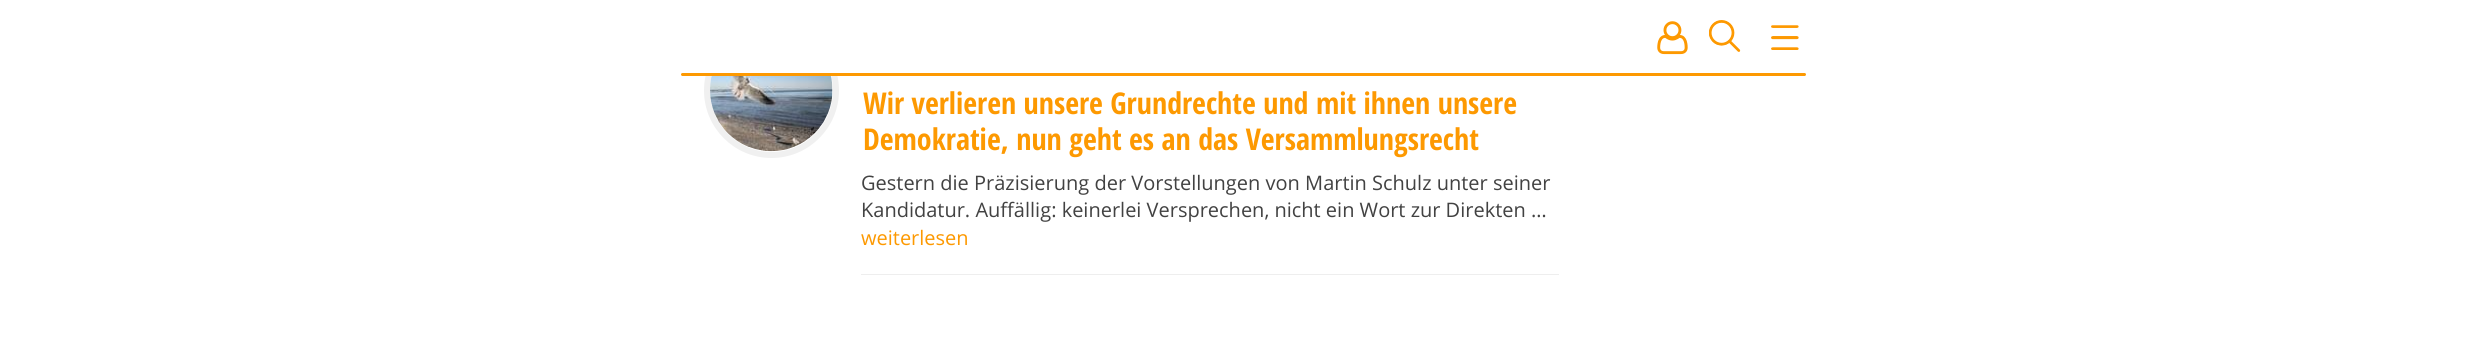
import math
import cairo

surface = cairo.ImageSurface(cairo.FORMAT_RGB24, 2486, 343)
ctx = cairo.Context(surface)
options = cairo.FontOptions()
options.set_hint_metrics(cairo.HINT_METRICS_OFF)
options.set_hint_style(cairo.HINT_STYLE_NONE)
ctx.set_font_options(options)
ctx.set_miter_limit(4)


def round_rect(x, y, w, h, r):
    ctx.new_sub_path()
    for i, (u, v) in enumerate([(x + w - r, y + h - r), (x + r, y + h - r), (x + r, y + r), (x + w - r, y + r)]):
        ctx.arc(u, v, r, i * math.pi / 2, (i + 1) * math.pi / 2)
    ctx.close_path()


def picture(path, x, y, w, h):
    ctx.save()
    ctx.set_source_surface(cairo.ImageSurface.create_from_png(path), x, y)
    ctx.rectangle(x, y, w, h)
    ctx.fill()
    ctx.restore()


ctx.set_source_rgb(1, 1, 1)
ctx.paint()
ctx.arc(771.5, 90.5, 64.5, 0, 2 * math.pi)
ctx.set_source_rgb(0.941, 0.941, 0.941)
ctx.set_line_width(6)
ctx.stroke()
ctx.set_source_rgb(1, 1, 1)
ctx.rectangle(706, 23, 131, 52)
ctx.fill()
picture("img1.png", 1657, 21, 31, 34)
picture("img2.png", 1709, 20, 32, 32)
picture("img3.png", 1771, 25, 28, 25)
ctx.set_source_rgb(0.992, 0.6, 0.004)
round_rect(681, 73, 1125, 3, 1.5)
ctx.fill()
picture("img4.png", 710, 76, 123, 76)
ctx.select_font_face("Open Sans Condensed", cairo.FONT_SLANT_NORMAL, cairo.FONT_WEIGHT_BOLD)
ctx.set_font_size(30)
ctx.move_to(863, 114)
ctx.show_text("Wir verlieren unsere Grundrechte und mit ihnen unsere")
ctx.move_to(863, 150)
ctx.show_text("Demokratie, nun geht es an das Versammlungsrecht")
ctx.set_source_rgb(0.933, 0.933, 0.933)
ctx.rectangle(861, 274, 698, 1)
ctx.fill()
ctx.select_font_face("Open Sans")
ctx.set_font_size(20)
ctx.set_source_rgb(0.259, 0.259, 0.259)
ctx.move_to(861, 190)
ctx.show_text("Gestern die Präzisierung der Vorstellungen von Martin Schulz unter seiner")
ctx.move_to(861, 217)
ctx.show_text("Kandidatur. Auffällig: keinerlei Versprechen, nicht ein Wort zur Direkten …")
ctx.set_source_rgb(0.992, 0.6, 0.004)
ctx.move_to(861, 245)
ctx.show_text("weiterlesen")
surface.write_to_png("page.png")
